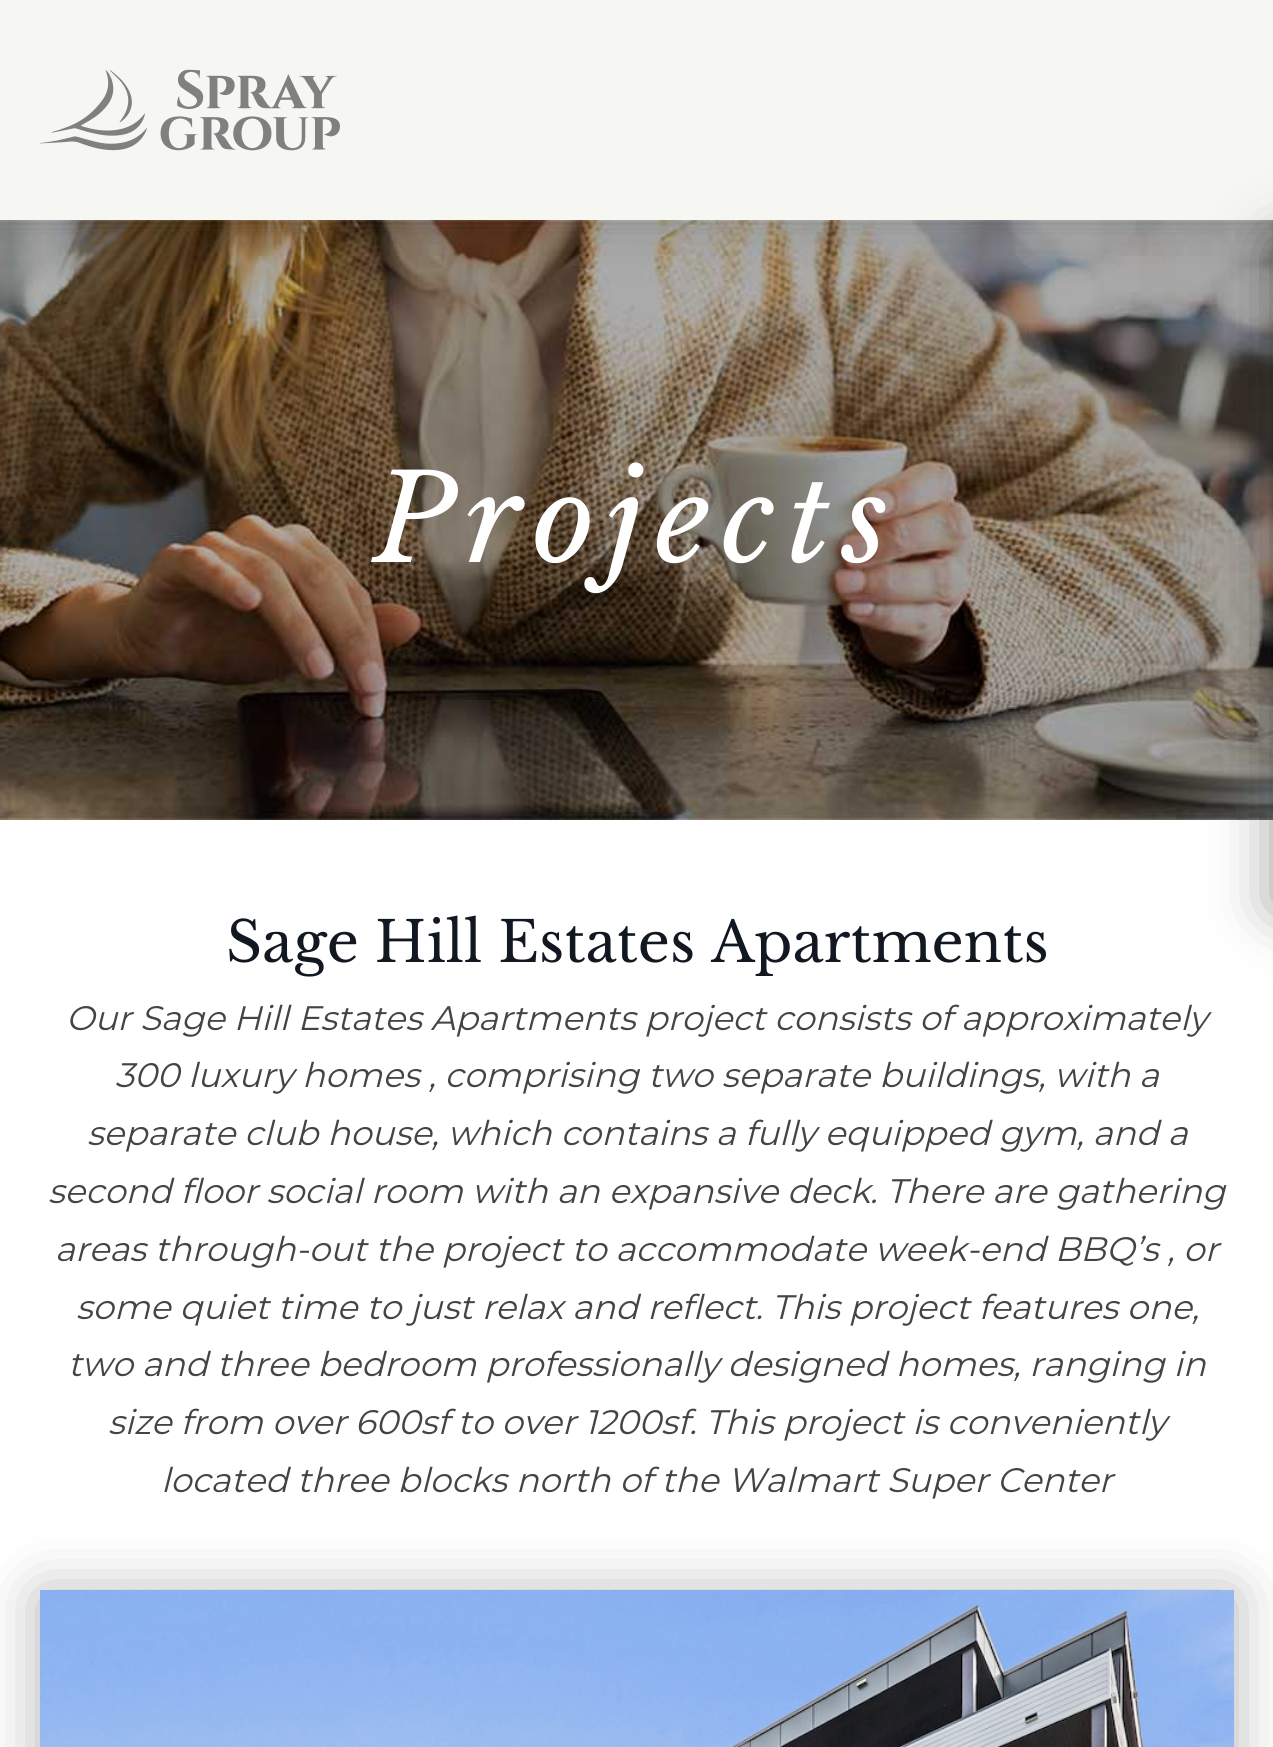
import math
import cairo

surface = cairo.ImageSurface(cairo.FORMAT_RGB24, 1273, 1747)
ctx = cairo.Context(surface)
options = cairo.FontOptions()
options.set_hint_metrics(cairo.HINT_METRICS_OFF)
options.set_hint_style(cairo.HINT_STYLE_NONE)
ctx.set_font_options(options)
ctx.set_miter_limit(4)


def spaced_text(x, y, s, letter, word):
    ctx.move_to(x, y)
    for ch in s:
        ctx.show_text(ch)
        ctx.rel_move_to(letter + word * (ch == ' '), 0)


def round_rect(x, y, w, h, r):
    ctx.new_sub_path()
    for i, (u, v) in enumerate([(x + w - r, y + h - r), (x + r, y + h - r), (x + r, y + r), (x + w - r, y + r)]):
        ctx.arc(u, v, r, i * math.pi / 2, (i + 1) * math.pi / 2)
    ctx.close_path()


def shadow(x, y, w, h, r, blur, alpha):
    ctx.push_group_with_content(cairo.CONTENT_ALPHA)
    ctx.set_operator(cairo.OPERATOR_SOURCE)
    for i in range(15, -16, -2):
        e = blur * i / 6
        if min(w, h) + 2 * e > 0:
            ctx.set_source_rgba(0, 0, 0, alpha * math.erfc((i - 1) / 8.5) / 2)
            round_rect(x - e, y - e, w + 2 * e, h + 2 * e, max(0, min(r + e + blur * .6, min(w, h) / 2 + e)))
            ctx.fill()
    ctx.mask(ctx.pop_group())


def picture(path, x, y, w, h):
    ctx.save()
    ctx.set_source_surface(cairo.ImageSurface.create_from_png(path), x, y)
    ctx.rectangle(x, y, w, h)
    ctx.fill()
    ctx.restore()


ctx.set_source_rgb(1, 1, 1)
ctx.paint()
picture("img2.png", 0, 220, 1273, 600)
ctx.set_source_rgb(0, 0, 0)
shadow(0, 0, 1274, 220, 0, 30, 0.2)
ctx.set_source_rgb(0.961, 0.961, 0.953)
ctx.rectangle(0, 0, 1273, 220)
ctx.fill()
picture("img1.png", 40, 69, 300, 82)
ctx.select_font_face("Libre Baskerville", cairo.FONT_SLANT_ITALIC)
ctx.set_font_size(120)
ctx.set_source_rgb(1, 1, 1)
spaced_text(373, 562, "Projects", 12, 0)
ctx.select_font_face("Libre Baskerville")
ctx.set_font_size(56)
ctx.set_source_rgb(0.067, 0.094, 0.129)
ctx.move_to(226, 962)
ctx.show_text("Sage Hill Estates Apartments")
ctx.select_font_face("Montserrat", cairo.FONT_SLANT_ITALIC)
ctx.set_font_size(34)
ctx.set_source_rgb(0.267, 0.267, 0.267)
ctx.move_to(66, 1030)
ctx.show_text("Our Sage Hill Estates Apartments project consists of approximately")
ctx.move_to(115, 1087)
ctx.show_text("300 luxury homes , comprising two separate buildings, with a")
ctx.move_to(87, 1145)
ctx.show_text("separate club house, which contains a fully equipped gym, and a")
ctx.move_to(48, 1203)
ctx.show_text("second floor social room with an expansive deck. There are gathering")
ctx.move_to(55, 1261)
ctx.show_text("areas through-out the project to accommodate week-end BBQ’s , or")
ctx.move_to(76, 1319)
ctx.show_text("some quiet time to just relax and reflect. This project features one,")
ctx.move_to(68, 1376)
ctx.show_text("two and three bedroom professionally designed homes, ranging in")
ctx.move_to(108, 1434)
ctx.show_text("size from over 600sf to over 1200sf. This project is conveniently")
ctx.move_to(161, 1492)
ctx.show_text("located three blocks north of the Walmart Super Center")
ctx.set_source_rgb(0, 0, 0)
shadow(40, 1594, 1194, 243, 0, 30, 0.3)
picture("img3.png", 40, 1590, 1194, 157)
shadow(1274, 244, 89, 664, 0, 30, 0.4)
surface.write_to_png("page.png")
